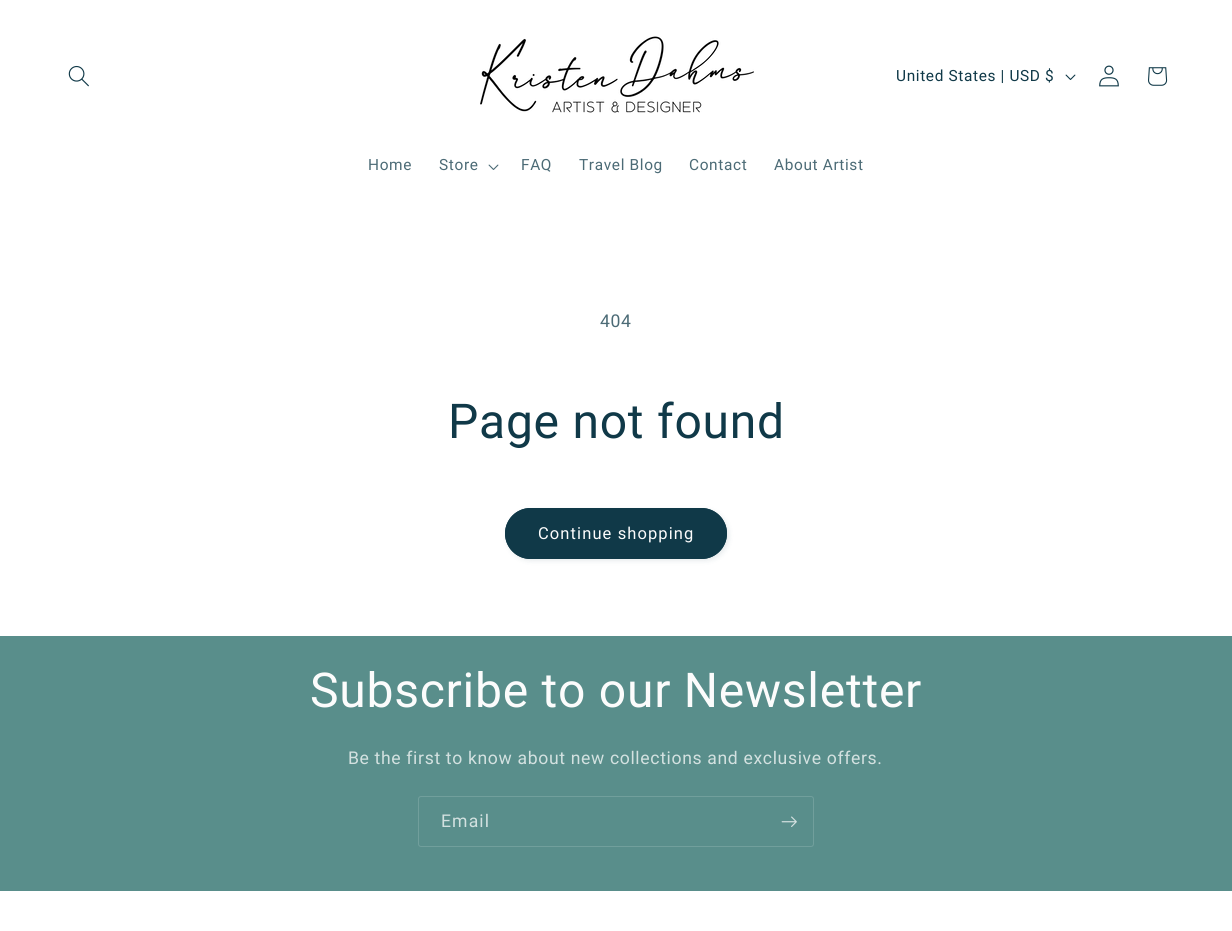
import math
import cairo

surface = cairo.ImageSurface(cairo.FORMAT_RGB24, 1232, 931)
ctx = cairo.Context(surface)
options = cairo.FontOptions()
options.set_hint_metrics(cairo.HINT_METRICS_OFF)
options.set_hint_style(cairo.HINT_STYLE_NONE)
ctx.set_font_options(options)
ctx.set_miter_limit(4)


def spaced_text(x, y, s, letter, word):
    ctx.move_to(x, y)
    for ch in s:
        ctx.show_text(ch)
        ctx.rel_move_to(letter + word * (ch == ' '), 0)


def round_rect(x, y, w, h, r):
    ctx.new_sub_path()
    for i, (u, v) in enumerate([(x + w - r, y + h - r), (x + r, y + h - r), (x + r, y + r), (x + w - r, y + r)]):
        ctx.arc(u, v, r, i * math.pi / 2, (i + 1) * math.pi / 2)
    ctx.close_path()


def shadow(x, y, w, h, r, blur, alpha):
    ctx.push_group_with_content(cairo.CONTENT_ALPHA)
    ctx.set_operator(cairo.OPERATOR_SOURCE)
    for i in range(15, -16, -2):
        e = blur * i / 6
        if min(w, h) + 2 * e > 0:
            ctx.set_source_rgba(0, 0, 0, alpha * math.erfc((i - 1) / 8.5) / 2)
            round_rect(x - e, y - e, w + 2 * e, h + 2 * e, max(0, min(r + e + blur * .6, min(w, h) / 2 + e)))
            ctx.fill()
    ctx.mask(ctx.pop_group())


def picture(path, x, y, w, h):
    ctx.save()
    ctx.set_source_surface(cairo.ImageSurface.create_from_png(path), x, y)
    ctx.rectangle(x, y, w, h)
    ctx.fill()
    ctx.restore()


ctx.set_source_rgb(1, 1, 1)
ctx.paint()
picture("img1.png", 68, 65, 21, 22)
picture("img2.png", 480, 36, 274, 77)
ctx.select_font_face("Roboto")
ctx.set_font_size(15.4)
ctx.set_source_rgb(0.063, 0.224, 0.282)
spaced_text(896, 81, "United States | USD $", 0.65, 0)
picture("img3.png", 1065, 74, 11, 6)
picture("img4.png", 1099, 65, 20, 22)
picture("img5.png", 1148, 67, 20, 19)
ctx.set_source_rgb(0.298, 0.42, 0.463)
spaced_text(368, 170, "Home", 0.65, 0)
spaced_text(439, 170, "Store", 0.65, 0)
picture("img6.png", 488, 164, 11, 6)
spaced_text(521, 170, "FAQ", 0.65, 0)
spaced_text(579, 170, "Travel Blog", 0.65, 0)
spaced_text(689, 170, "Contact", 0.65, 0)
spaced_text(774, 170, "About Artist", 0.65, 0)
ctx.set_font_size(17.6)
spaced_text(600, 327, "404", 0.65, 0)
ctx.set_font_size(48)
ctx.set_source_rgb(0.063, 0.224, 0.282)
spaced_text(448, 438, "Page not found", 0.75, 0)
ctx.set_source_rgb(0.063, 0.224, 0.282)
shadow(507, 510, 222, 51, 25.5, 2.5, 0.1)
ctx.set_source_rgb(0.063, 0.224, 0.282)
round_rect(505, 508, 222, 51, 25.5)
ctx.fill()
round_rect(505.5, 508.5, 221, 50, 25)
ctx.set_line_width(1)
ctx.stroke()
ctx.set_font_size(16.5)
ctx.set_source_rgb(0.988, 0.988, 0.988)
spaced_text(538, 539, "Continue shopping", 1.1, 0)
ctx.set_source_rgb(0.349, 0.557, 0.545)
ctx.rectangle(0, 636, 1232, 255)
ctx.fill()
ctx.set_font_size(48)
ctx.set_source_rgb(0.988, 0.988, 0.988)
spaced_text(310, 707, "Subscribe to our Newsletter", 0.75, 0)
ctx.set_font_size(17.6)
ctx.set_source_rgb(0.827, 0.882, 0.878)
spaced_text(348, 764, "Be the first to know about new collections and exclusive offers.", 0.65, 0)
round_rect(418.5, 796.5, 395, 50, 2.5)
ctx.set_source_rgb(0.443, 0.624, 0.612)
ctx.stroke()
ctx.set_source_rgb(0.827, 0.882, 0.878)
spaced_text(441, 827, "Email", 1.1, 0)
picture("img7.png", 781, 816, 16, 11)
surface.write_to_png("page.png")
